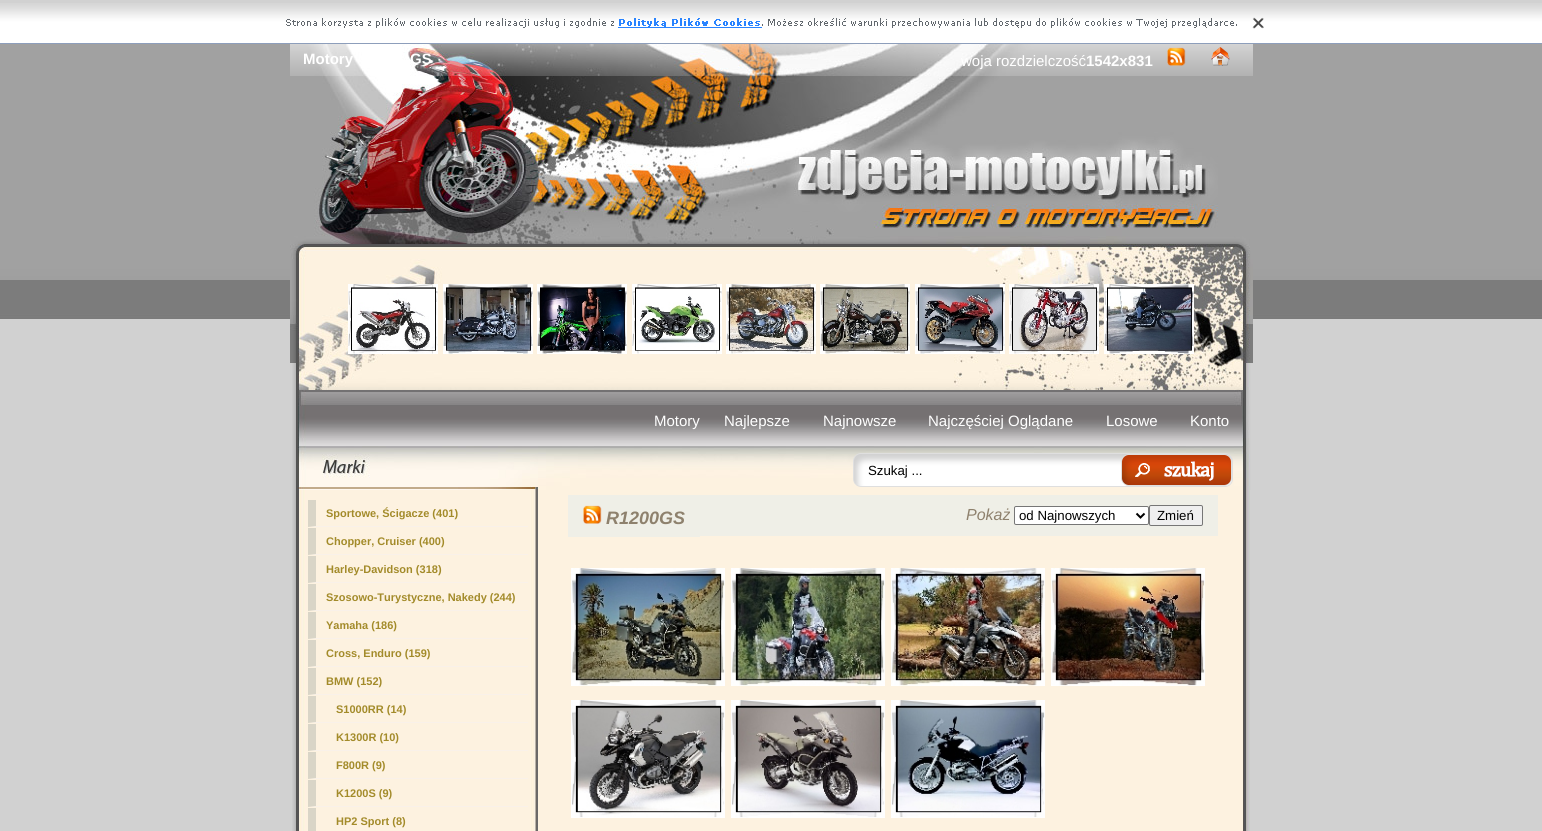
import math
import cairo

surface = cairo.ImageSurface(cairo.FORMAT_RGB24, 1542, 831)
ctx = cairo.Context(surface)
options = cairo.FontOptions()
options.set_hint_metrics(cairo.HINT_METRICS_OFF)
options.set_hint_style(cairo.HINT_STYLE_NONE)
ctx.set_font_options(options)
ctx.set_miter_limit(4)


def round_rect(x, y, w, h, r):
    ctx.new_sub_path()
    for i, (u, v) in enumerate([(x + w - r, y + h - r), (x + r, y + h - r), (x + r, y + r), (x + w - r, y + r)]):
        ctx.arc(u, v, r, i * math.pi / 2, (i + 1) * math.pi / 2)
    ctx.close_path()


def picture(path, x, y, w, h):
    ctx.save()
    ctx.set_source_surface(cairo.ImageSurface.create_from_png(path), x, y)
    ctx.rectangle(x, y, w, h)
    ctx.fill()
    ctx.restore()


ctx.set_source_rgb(0.82, 0.82, 0.82)
ctx.paint()
picture("img1.png", 0, 44, 1542, 275)
picture("img2.png", 0, 3, 1542, 41)
picture("img3.png", 286, 17, 978, 12)
picture("img4.png", 290, 44, 963, 207)
ctx.select_font_face("Liberation Sans", cairo.FONT_SLANT_NORMAL, cairo.FONT_WEIGHT_BOLD)
ctx.set_font_size(15)
ctx.set_source_rgb(1, 1, 1)
ctx.move_to(303, 64)
ctx.show_text("Motory")
ctx.move_to(410, 64)
ctx.show_text("GS")
ctx.select_font_face("Liberation Sans")
ctx.move_to(961, 66)
ctx.show_text("woja rozdzielczość")
ctx.select_font_face("Liberation Sans", cairo.FONT_SLANT_NORMAL, cairo.FONT_WEIGHT_BOLD)
ctx.move_to(1086, 66)
ctx.show_text("1542x831")
picture("img5.png", 1167, 47, 19, 19)
picture("img6.png", 1211, 47, 19, 19)
picture("img7.png", 290, 251, 963, 139)
picture("img8.png", 348, 284, 90, 70)
picture("img9.png", 443, 284, 90, 70)
picture("img10.png", 537, 284, 90, 70)
picture("img11.png", 632, 284, 90, 70)
picture("img12.png", 726, 284, 90, 70)
picture("img13.png", 820, 284, 90, 70)
picture("img14.png", 915, 284, 90, 70)
picture("img15.png", 1009, 284, 90, 70)
picture("img16.png", 1104, 284, 90, 70)
picture("img17.png", 290, 390, 963, 100)
ctx.select_font_face("Liberation Sans")
ctx.move_to(654, 426)
ctx.show_text("Motory")
ctx.move_to(724, 426)
ctx.show_text("Najlepsze")
ctx.move_to(823, 426)
ctx.show_text("Najnowsze")
ctx.move_to(928, 426)
ctx.show_text("Najczęściej Oglądane")
ctx.move_to(1106, 426)
ctx.show_text("Losowe")
ctx.move_to(1190, 426)
ctx.show_text("Konto")
picture("img18.png", 853, 453, 380, 34)
ctx.set_font_size(13.25)
ctx.set_source_rgb(0, 0, 0)
ctx.move_to(868, 475)
ctx.show_text("Szukaj ...")
picture("img19.png", 292, 490, 958, 341)
ctx.set_source_rgb(0.973, 0.945, 0.914)
ctx.new_path()
ctx.move_to(528, 527)
ctx.line_to(308, 527)
ctx.line_to(316, 526)
ctx.line_to(528, 526)
ctx.close_path()
ctx.fill()
ctx.set_source_rgb(0.851, 0.835, 0.78)
ctx.new_path()
ctx.move_to(308, 527)
ctx.line_to(308, 500)
ctx.line_to(316, 500)
ctx.line_to(316, 526)
ctx.close_path()
ctx.fill()
ctx.select_font_face("Liberation Sans", cairo.FONT_SLANT_NORMAL, cairo.FONT_WEIGHT_BOLD)
ctx.set_font_size(11)
ctx.set_source_rgb(0.639, 0.545, 0.165)
ctx.move_to(326, 517)
ctx.show_text("Sportowe, Ścigacze (401)")
ctx.set_source_rgb(0.973, 0.945, 0.914)
ctx.new_path()
ctx.move_to(528, 555)
ctx.line_to(308, 555)
ctx.line_to(316, 554)
ctx.line_to(528, 554)
ctx.close_path()
ctx.fill()
ctx.set_source_rgb(0.851, 0.835, 0.78)
ctx.new_path()
ctx.move_to(308, 555)
ctx.line_to(308, 528)
ctx.line_to(316, 528)
ctx.line_to(316, 554)
ctx.close_path()
ctx.fill()
ctx.set_source_rgb(0.639, 0.545, 0.165)
ctx.move_to(326, 545)
ctx.show_text("Chopper, Cruiser (400)")
ctx.set_source_rgb(0.973, 0.945, 0.914)
ctx.new_path()
ctx.move_to(528, 583)
ctx.line_to(308, 583)
ctx.line_to(316, 582)
ctx.line_to(528, 582)
ctx.close_path()
ctx.fill()
ctx.set_source_rgb(0.851, 0.835, 0.78)
ctx.new_path()
ctx.move_to(308, 583)
ctx.line_to(308, 556)
ctx.line_to(316, 556)
ctx.line_to(316, 582)
ctx.close_path()
ctx.fill()
ctx.set_source_rgb(0.639, 0.545, 0.165)
ctx.move_to(326, 573)
ctx.show_text("Harley-Davidson (318)")
ctx.set_source_rgb(0.973, 0.945, 0.914)
ctx.new_path()
ctx.move_to(528, 611)
ctx.line_to(308, 611)
ctx.line_to(316, 610)
ctx.line_to(528, 610)
ctx.close_path()
ctx.fill()
ctx.set_source_rgb(0.851, 0.835, 0.78)
ctx.new_path()
ctx.move_to(308, 611)
ctx.line_to(308, 584)
ctx.line_to(316, 584)
ctx.line_to(316, 610)
ctx.close_path()
ctx.fill()
ctx.set_source_rgb(0.639, 0.545, 0.165)
ctx.move_to(326, 601)
ctx.show_text("Szosowo-Turystyczne, Nakedy (244)")
ctx.set_source_rgb(0.973, 0.945, 0.914)
ctx.new_path()
ctx.move_to(528, 639)
ctx.line_to(308, 639)
ctx.line_to(316, 638)
ctx.line_to(528, 638)
ctx.close_path()
ctx.fill()
ctx.set_source_rgb(0.851, 0.835, 0.78)
ctx.new_path()
ctx.move_to(308, 639)
ctx.line_to(308, 612)
ctx.line_to(316, 612)
ctx.line_to(316, 638)
ctx.close_path()
ctx.fill()
ctx.set_source_rgb(0.639, 0.545, 0.165)
ctx.move_to(326, 629)
ctx.show_text("Yamaha (186)")
ctx.set_source_rgb(0.973, 0.945, 0.914)
ctx.new_path()
ctx.move_to(528, 667)
ctx.line_to(308, 667)
ctx.line_to(316, 666)
ctx.line_to(528, 666)
ctx.close_path()
ctx.fill()
ctx.set_source_rgb(0.851, 0.835, 0.78)
ctx.new_path()
ctx.move_to(308, 667)
ctx.line_to(308, 640)
ctx.line_to(316, 640)
ctx.line_to(316, 666)
ctx.close_path()
ctx.fill()
ctx.set_source_rgb(0.639, 0.545, 0.165)
ctx.move_to(326, 657)
ctx.show_text("Cross, Enduro (159)")
ctx.set_source_rgb(0.973, 0.945, 0.914)
ctx.new_path()
ctx.move_to(528, 695)
ctx.line_to(308, 695)
ctx.line_to(316, 694)
ctx.line_to(528, 694)
ctx.close_path()
ctx.fill()
ctx.set_source_rgb(0.851, 0.835, 0.78)
ctx.new_path()
ctx.move_to(308, 695)
ctx.line_to(308, 668)
ctx.line_to(316, 668)
ctx.line_to(316, 694)
ctx.close_path()
ctx.fill()
ctx.set_source_rgb(0.639, 0.545, 0.165)
ctx.move_to(326, 685)
ctx.show_text("BMW (152)")
ctx.set_source_rgb(0.973, 0.945, 0.914)
ctx.new_path()
ctx.move_to(528, 723)
ctx.line_to(308, 723)
ctx.line_to(316, 722)
ctx.line_to(528, 722)
ctx.close_path()
ctx.fill()
ctx.set_source_rgb(0.851, 0.835, 0.78)
ctx.new_path()
ctx.move_to(308, 723)
ctx.line_to(308, 696)
ctx.line_to(316, 696)
ctx.line_to(316, 722)
ctx.close_path()
ctx.fill()
ctx.set_source_rgb(0.639, 0.545, 0.165)
ctx.move_to(336, 713)
ctx.show_text("S1000RR (14)")
ctx.set_source_rgb(0.973, 0.945, 0.914)
ctx.new_path()
ctx.move_to(528, 751)
ctx.line_to(308, 751)
ctx.line_to(316, 750)
ctx.line_to(528, 750)
ctx.close_path()
ctx.fill()
ctx.set_source_rgb(0.851, 0.835, 0.78)
ctx.new_path()
ctx.move_to(308, 751)
ctx.line_to(308, 724)
ctx.line_to(316, 724)
ctx.line_to(316, 750)
ctx.close_path()
ctx.fill()
ctx.set_source_rgb(0.639, 0.545, 0.165)
ctx.move_to(336, 741)
ctx.show_text("K1300R (10)")
ctx.set_source_rgb(0.973, 0.945, 0.914)
ctx.new_path()
ctx.move_to(528, 779)
ctx.line_to(308, 779)
ctx.line_to(316, 778)
ctx.line_to(528, 778)
ctx.close_path()
ctx.fill()
ctx.set_source_rgb(0.851, 0.835, 0.78)
ctx.new_path()
ctx.move_to(308, 779)
ctx.line_to(308, 752)
ctx.line_to(316, 752)
ctx.line_to(316, 778)
ctx.close_path()
ctx.fill()
ctx.set_source_rgb(0.639, 0.545, 0.165)
ctx.move_to(336, 769)
ctx.show_text("F800R (9)")
ctx.set_source_rgb(0.973, 0.945, 0.914)
ctx.new_path()
ctx.move_to(528, 807)
ctx.line_to(308, 807)
ctx.line_to(316, 806)
ctx.line_to(528, 806)
ctx.close_path()
ctx.fill()
ctx.set_source_rgb(0.851, 0.835, 0.78)
ctx.new_path()
ctx.move_to(308, 807)
ctx.line_to(308, 780)
ctx.line_to(316, 780)
ctx.line_to(316, 806)
ctx.close_path()
ctx.move_to(308, 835)
ctx.line_to(308, 808)
ctx.line_to(316, 808)
ctx.line_to(316, 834)
ctx.close_path()
ctx.fill()
ctx.set_source_rgb(0.639, 0.545, 0.165)
ctx.move_to(336, 797)
ctx.show_text("K1200S (9)")
ctx.move_to(336, 825)
ctx.show_text("HP2 Sport (8)")
ctx.set_source_rgb(0.937, 0.937, 0.906)
ctx.rectangle(568, 495, 132, 42)
ctx.fill()
picture("img20.png", 583, 505, 19, 19)
ctx.select_font_face("Liberation Sans", cairo.FONT_SLANT_ITALIC, cairo.FONT_WEIGHT_BOLD)
ctx.set_font_size(18)
ctx.set_source_rgb(0.557, 0.506, 0.427)
ctx.move_to(606, 524)
ctx.show_text("R1200GS")
ctx.set_source_rgb(0.937, 0.937, 0.906)
ctx.rectangle(700, 495, 518, 41)
ctx.fill()
ctx.select_font_face("Liberation Sans", cairo.FONT_SLANT_ITALIC)
ctx.set_font_size(16)
ctx.set_source_rgb(0.557, 0.506, 0.427)
ctx.move_to(966, 520)
ctx.show_text("Pokaż")
ctx.set_source_rgb(1, 1, 1)
round_rect(1014.5, 506.5, 134, 18, 1.5)
ctx.fill_preserve()
ctx.set_source_rgb(0.463, 0.463, 0.463)
ctx.set_line_width(1)
ctx.stroke()
ctx.new_path()
ctx.move_to(1136.5, 513.5)
ctx.line_to(1140.5, 517.5)
ctx.line_to(1144.5, 513.5)
ctx.set_source_rgb(0, 0, 0)
ctx.set_line_width(2)
ctx.stroke()
ctx.select_font_face("Liberation Sans")
ctx.set_font_size(13.25)
ctx.move_to(1019, 520)
ctx.show_text("od Najnowszych")
ctx.set_source_rgb(0.937, 0.937, 0.937)
round_rect(1149.5, 505.5, 53, 20, 1.5)
ctx.fill_preserve()
ctx.set_source_rgb(0.463, 0.463, 0.463)
ctx.set_line_width(1)
ctx.stroke()
ctx.set_source_rgb(0, 0, 0)
ctx.move_to(1157, 520)
ctx.show_text("Zmień")
picture("img21.png", 571, 568, 154, 118)
picture("img22.png", 731, 568, 154, 118)
picture("img23.png", 891, 568, 154, 118)
picture("img24.png", 1051, 568, 154, 118)
picture("img25.png", 571, 700, 154, 118)
picture("img26.png", 731, 700, 154, 118)
picture("img27.png", 891, 700, 154, 118)
surface.write_to_png("page.png")
